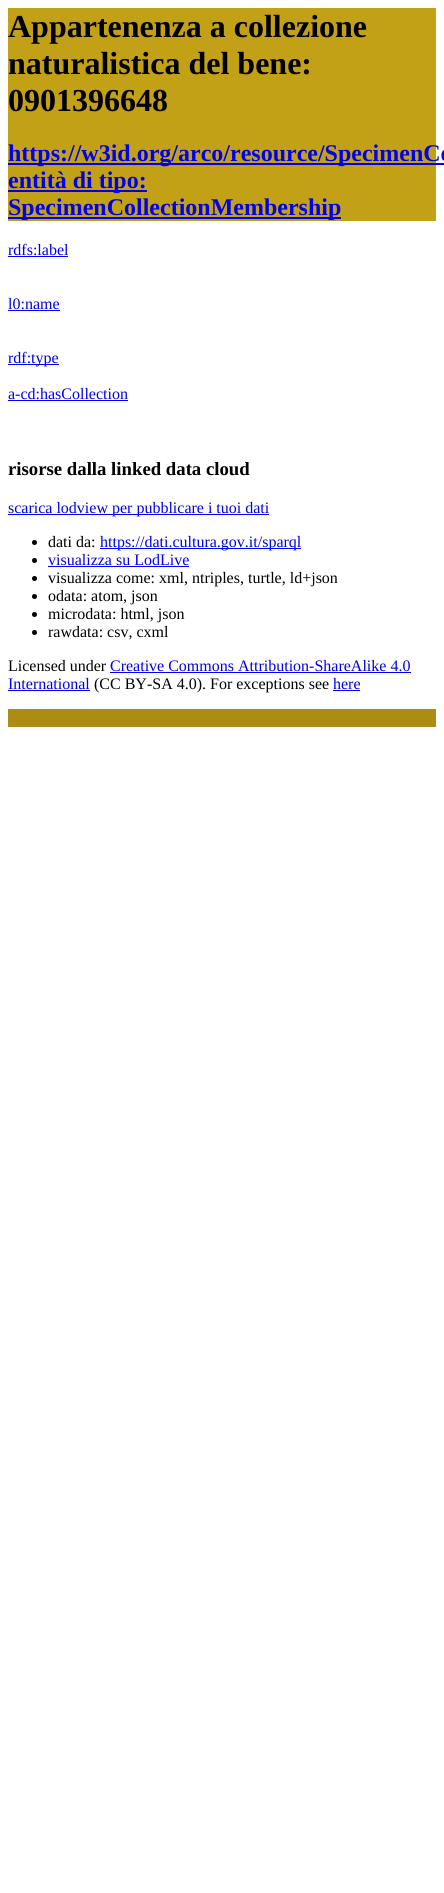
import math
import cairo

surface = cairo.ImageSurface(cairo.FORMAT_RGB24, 444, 1893)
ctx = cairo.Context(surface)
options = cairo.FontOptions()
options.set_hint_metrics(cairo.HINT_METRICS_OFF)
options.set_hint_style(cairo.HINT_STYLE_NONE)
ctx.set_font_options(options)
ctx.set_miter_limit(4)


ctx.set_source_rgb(1, 1, 1)
ctx.paint()
ctx.set_source_rgb(0.765, 0.631, 0.086)
ctx.rectangle(8, 8, 428, 213)
ctx.fill()
ctx.select_font_face("Liberation Serif", cairo.FONT_SLANT_NORMAL, cairo.FONT_WEIGHT_BOLD)
ctx.set_font_size(32)
ctx.set_source_rgb(0, 0, 0)
ctx.move_to(8, 37)
ctx.show_text("Appartenenza a collezione")
ctx.move_to(8, 74)
ctx.show_text("naturalistica del bene:")
ctx.move_to(8, 111)
ctx.show_text("0901396648")
ctx.set_source_rgb(0, 0, 0.933)
ctx.rectangle(8, 163, 436, 2)
ctx.fill()
ctx.set_font_size(24)
ctx.move_to(8, 161)
ctx.show_text("https://w3id.org/arco/resource/SpecimenCo")
ctx.rectangle(8, 190, 139, 2)
ctx.fill()
ctx.move_to(8, 188)
ctx.show_text("entità di tipo:")
ctx.rectangle(8, 217, 333, 2)
ctx.fill()
ctx.move_to(8, 215)
ctx.show_text("SpecimenCollectionMembership")
ctx.select_font_face("Liberation Serif")
ctx.set_font_size(16)
ctx.move_to(8, 255)
ctx.show_text("rdfs:label")
ctx.rectangle(8, 256, 60, 1)
ctx.fill()
ctx.move_to(8, 309)
ctx.show_text("l0:name")
ctx.rectangle(8, 310, 52, 1)
ctx.fill()
ctx.rectangle(8, 364, 51, 1)
ctx.fill()
ctx.move_to(8, 363)
ctx.show_text("rdf:type")
ctx.move_to(8, 399)
ctx.show_text("a-cd:hasCollection")
ctx.rectangle(8, 400, 120, 1)
ctx.fill()
ctx.select_font_face("Liberation Serif", cairo.FONT_SLANT_NORMAL, cairo.FONT_WEIGHT_BOLD)
ctx.set_font_size(18.75)
ctx.set_source_rgb(0, 0, 0)
ctx.move_to(8, 475)
ctx.show_text("risorse dalla linked data cloud")
ctx.set_source_rgb(0, 0, 0.933)
ctx.rectangle(8, 514, 261, 1)
ctx.fill()
ctx.select_font_face("Liberation Serif")
ctx.set_font_size(16)
ctx.move_to(8, 513)
ctx.show_text("scarica lodview per pubblicare i tuoi dati")
ctx.set_source_rgb(0, 0, 0)
ctx.new_path()
ctx.arc(34.5, 542.5, 2.5, 0, 2 * math.pi)
ctx.fill()
ctx.move_to(48, 547)
ctx.show_text("dati da:")
ctx.set_source_rgb(0, 0, 0.933)
ctx.rectangle(100, 548, 201, 1)
ctx.fill()
ctx.move_to(100, 547)
ctx.show_text("https://dati.cultura.gov.it/sparql")
ctx.set_source_rgb(0, 0, 0)
ctx.new_path()
ctx.arc(34.5, 560.5, 2.5, 0, 2 * math.pi)
ctx.fill()
ctx.set_source_rgb(0, 0, 0.933)
ctx.move_to(48, 565)
ctx.show_text("visualizza su LodLive")
ctx.rectangle(48, 566, 141, 1)
ctx.fill()
ctx.set_source_rgb(0, 0, 0)
ctx.arc(34.5, 578.5, 2.5, 0, 2 * math.pi)
ctx.fill()
ctx.move_to(48, 583)
ctx.show_text("visualizza come: xml, ntriples, turtle, ld+json")
ctx.new_path()
ctx.arc(34.5, 596.5, 2.5, 0, 2 * math.pi)
ctx.fill()
ctx.move_to(48, 601)
ctx.show_text("odata: atom, json")
ctx.new_path()
ctx.arc(34.5, 614.5, 2.5, 0, 2 * math.pi)
ctx.fill()
ctx.move_to(48, 619)
ctx.show_text("microdata: html, json")
ctx.new_path()
ctx.arc(34.5, 632.5, 2.5, 0, 2 * math.pi)
ctx.fill()
ctx.move_to(48, 637)
ctx.show_text("rawdata: csv, cxml")
ctx.move_to(8, 671)
ctx.show_text("Licensed under")
ctx.set_source_rgb(0, 0, 0.933)
ctx.move_to(110, 671)
ctx.show_text("Creative Commons Attribution-ShareAlike 4.0")
ctx.rectangle(110, 672, 301, 1)
ctx.fill()
ctx.move_to(8, 689)
ctx.show_text("International")
ctx.rectangle(8, 690, 82, 1)
ctx.fill()
ctx.set_source_rgb(0, 0, 0)
ctx.move_to(94, 689)
ctx.show_text("(CC BY-SA 4.0). For exceptions see")
ctx.set_source_rgb(0, 0, 0.933)
ctx.move_to(333, 689)
ctx.show_text("here")
ctx.rectangle(333, 690, 27, 1)
ctx.fill()
ctx.set_source_rgb(0.675, 0.549, 0.075)
ctx.rectangle(8, 709, 428, 18)
ctx.fill()
surface.write_to_png("page.png")
